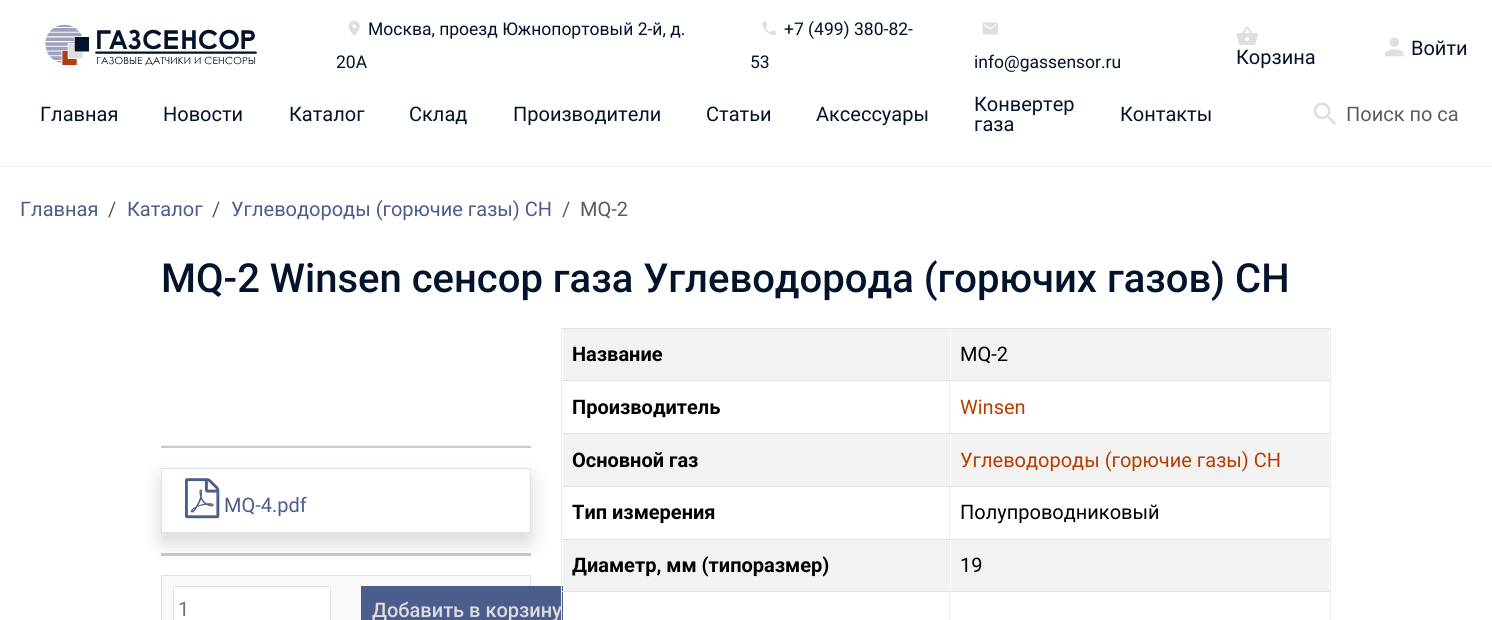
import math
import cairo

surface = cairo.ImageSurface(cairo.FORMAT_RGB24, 1492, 620)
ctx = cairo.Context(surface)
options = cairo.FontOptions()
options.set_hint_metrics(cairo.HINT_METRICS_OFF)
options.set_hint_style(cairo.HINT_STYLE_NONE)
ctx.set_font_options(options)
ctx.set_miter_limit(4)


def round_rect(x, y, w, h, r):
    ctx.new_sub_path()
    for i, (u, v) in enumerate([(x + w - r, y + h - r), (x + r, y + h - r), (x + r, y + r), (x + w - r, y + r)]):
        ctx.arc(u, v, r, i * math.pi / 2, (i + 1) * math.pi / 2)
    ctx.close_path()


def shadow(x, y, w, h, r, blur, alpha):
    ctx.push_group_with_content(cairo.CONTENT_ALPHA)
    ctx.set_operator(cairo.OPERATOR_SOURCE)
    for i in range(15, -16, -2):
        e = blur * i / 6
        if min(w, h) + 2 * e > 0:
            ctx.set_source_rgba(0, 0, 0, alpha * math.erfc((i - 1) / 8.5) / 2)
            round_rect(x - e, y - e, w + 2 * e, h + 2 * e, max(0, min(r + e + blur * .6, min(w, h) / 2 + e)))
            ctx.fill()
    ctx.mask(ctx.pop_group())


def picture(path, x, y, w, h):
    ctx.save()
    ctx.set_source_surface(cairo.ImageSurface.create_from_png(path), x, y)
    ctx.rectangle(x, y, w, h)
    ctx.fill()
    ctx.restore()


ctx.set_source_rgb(1, 1, 1)
ctx.paint()
picture("img1.png", 45, 24, 212, 42)
picture("img2.png", 348, 20, 12, 16)
ctx.select_font_face("Roboto")
ctx.set_font_size(17.5)
ctx.set_source_rgb(0.012, 0.075, 0.169)
ctx.move_to(368, 35)
ctx.show_text("Москва, проезд Южнопортовый 2-й, д.")
ctx.move_to(336, 68)
ctx.show_text("20А")
picture("img3.png", 762, 21, 14, 14)
ctx.move_to(784, 35)
ctx.show_text("+7 (499) 380-82-")
ctx.move_to(750, 68)
ctx.show_text("53")
picture("img4.png", 982, 22, 16, 13)
ctx.move_to(974, 68)
ctx.show_text("info@gassensor.ru")
picture("img5.png", 1236, 26, 22, 19)
ctx.set_font_size(20)
ctx.move_to(1236, 64)
ctx.show_text("Корзина")
picture("img6.png", 1385, 37, 19, 20)
ctx.move_to(1411, 55)
ctx.show_text("Войти")
ctx.move_to(40, 121)
ctx.show_text("Главная")
ctx.move_to(163, 121)
ctx.show_text("Новости")
ctx.move_to(289, 121)
ctx.show_text("Каталог")
ctx.move_to(409, 121)
ctx.show_text("Склад")
ctx.move_to(513, 121)
ctx.show_text("Производители")
ctx.move_to(706, 121)
ctx.show_text("Статьи")
ctx.move_to(816, 121)
ctx.show_text("Аксессуары")
ctx.move_to(974, 111)
ctx.show_text("Конвертер")
ctx.move_to(974, 131)
ctx.show_text("газа")
ctx.move_to(1120, 121)
ctx.show_text("Контакты")
picture("img7.png", 1313, 102, 23, 23)
ctx.set_source_rgb(0.349, 0.361, 0.373)
ctx.move_to(1346, 121)
ctx.show_text("Поиск по са")
ctx.set_source_rgb(0.929, 0.929, 0.929)
ctx.rectangle(0, 166, 1492, 1)
ctx.fill()
ctx.set_source_rgb(0.298, 0.365, 0.553)
ctx.move_to(20, 216)
ctx.show_text("Главная")
ctx.set_source_rgb(0.349, 0.361, 0.373)
ctx.move_to(108, 216)
ctx.show_text("/")
ctx.set_source_rgb(0.298, 0.365, 0.553)
ctx.move_to(127, 216)
ctx.show_text("Каталог")
ctx.set_source_rgb(0.349, 0.361, 0.373)
ctx.move_to(212, 216)
ctx.show_text("/")
ctx.set_source_rgb(0.298, 0.365, 0.553)
ctx.move_to(231, 216)
ctx.show_text("Углеводороды (горючие газы) CH")
ctx.set_source_rgb(0.349, 0.361, 0.373)
ctx.move_to(562, 216)
ctx.show_text("/")
ctx.move_to(580, 216)
ctx.show_text("MQ-2")
ctx.select_font_face("Roboto Medium")
ctx.set_font_size(40)
ctx.set_source_rgb(0.012, 0.075, 0.169)
ctx.move_to(161, 292)
ctx.show_text("MQ-2 Winsen сенсор газа Углеводорода (горючих газов) CH")
ctx.set_source_rgb(0.788, 0.788, 0.788)
ctx.rectangle(161, 446, 370, 2)
ctx.fill()
ctx.set_source_rgb(0.949, 0.949, 0.949)
ctx.rectangle(161, 445, 370, 1)
ctx.fill()
ctx.set_source_rgb(0.973, 0.976, 0.98)
ctx.rectangle(161.5, 575.5, 369, 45)
ctx.fill_preserve()
ctx.set_source_rgb(0.871, 0.886, 0.902)
ctx.set_line_width(1)
ctx.stroke()
ctx.set_source_rgb(0.298, 0.365, 0.553)
ctx.rectangle(361, 586, 202, 34)
ctx.fill()
ctx.set_font_size(20)
ctx.set_source_rgb(0.867, 0.867, 0.867)
ctx.move_to(372, 617)
ctx.show_text("Добавить в корзину")
ctx.set_source_rgb(0.871, 0.886, 0.902)
ctx.rectangle(561, 328, 770, 1)
ctx.fill()
ctx.rectangle(561, 591, 770, 1)
ctx.fill()
ctx.rectangle(561, 380, 770, 1)
ctx.fill()
ctx.rectangle(561, 433, 770, 1)
ctx.fill()
ctx.rectangle(561, 486, 770, 1)
ctx.fill()
ctx.rectangle(561, 539, 770, 1)
ctx.fill()
ctx.set_source_rgb(0.933, 0.933, 0.933)
ctx.rectangle(561, 328, 1, 292)
ctx.fill()
ctx.save()
ctx.set_fill_rule(cairo.FILL_RULE_EVEN_ODD)
ctx.new_path()
ctx.move_to(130, 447)
ctx.line_to(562, 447)
ctx.line_to(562, 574)
ctx.line_to(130, 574)
ctx.close_path()
ctx.move_to(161, 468)
ctx.line_to(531, 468)
ctx.line_to(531, 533)
ctx.line_to(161, 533)
ctx.close_path()
ctx.clip()
ctx.set_source_rgb(0, 0, 0)
shadow(161, 478, 370, 65, 0, 10, 0.15)
ctx.restore()
ctx.rectangle(161.5, 468.5, 369, 64)
ctx.set_source_rgb(0.871, 0.886, 0.902)
ctx.stroke()
picture("img8.png", 185, 478, 35, 41)
ctx.select_font_face("Roboto")
ctx.set_source_rgb(0.298, 0.365, 0.553)
ctx.move_to(224, 512)
ctx.show_text("MQ-4.pdf")
ctx.set_source_rgba(0.145, 0.145, 0.145, 0.25)
ctx.rectangle(161, 554, 370, 2)
ctx.fill()
ctx.set_source_rgb(0.776, 0.776, 0.776)
ctx.rectangle(161, 553, 370, 1)
ctx.fill()
ctx.set_source_rgb(1, 1, 1)
round_rect(173.5, 586.5, 157, 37, 2)
ctx.fill_preserve()
ctx.set_source_rgb(0.882, 0.882, 0.882)
ctx.stroke()
ctx.set_source_rgb(0.439, 0.439, 0.439)
ctx.move_to(178, 616)
ctx.show_text("1")
ctx.set_source_rgb(0.933, 0.933, 0.933)
ctx.rectangle(1330, 328, 1, 292)
ctx.fill()
ctx.rectangle(949, 328, 1, 292)
ctx.fill()
ctx.set_source_rgb(0.949, 0.949, 0.949)
ctx.rectangle(563, 329, 386, 51)
ctx.fill()
ctx.select_font_face("Roboto", cairo.FONT_SLANT_NORMAL, cairo.FONT_WEIGHT_BOLD)
ctx.set_source_rgb(0, 0, 0)
ctx.move_to(572, 361)
ctx.show_text("Название")
ctx.set_source_rgb(0.949, 0.949, 0.949)
ctx.rectangle(951, 329, 378, 51)
ctx.fill()
ctx.select_font_face("Roboto")
ctx.set_source_rgb(0, 0, 0)
ctx.move_to(960, 361)
ctx.show_text("MQ-2")
ctx.select_font_face("Roboto", cairo.FONT_SLANT_NORMAL, cairo.FONT_WEIGHT_BOLD)
ctx.move_to(572, 414)
ctx.show_text("Производитель")
ctx.select_font_face("Roboto")
ctx.set_source_rgb(0.71, 0.243, 0)
ctx.move_to(960, 414)
ctx.show_text("Winsen")
ctx.set_source_rgb(0.949, 0.949, 0.949)
ctx.rectangle(563, 434, 386, 52)
ctx.fill()
ctx.select_font_face("Roboto", cairo.FONT_SLANT_NORMAL, cairo.FONT_WEIGHT_BOLD)
ctx.set_source_rgb(0, 0, 0)
ctx.move_to(572, 467)
ctx.show_text("Основной газ")
ctx.set_source_rgb(0.949, 0.949, 0.949)
ctx.rectangle(951, 434, 378, 52)
ctx.fill()
ctx.select_font_face("Roboto")
ctx.set_source_rgb(0.71, 0.243, 0)
ctx.move_to(960, 467)
ctx.show_text("Углеводороды (горючие газы) CH")
ctx.select_font_face("Roboto", cairo.FONT_SLANT_NORMAL, cairo.FONT_WEIGHT_BOLD)
ctx.set_source_rgb(0, 0, 0)
ctx.move_to(572, 519)
ctx.show_text("Тип измерения")
ctx.select_font_face("Roboto")
ctx.move_to(960, 519)
ctx.show_text("Полупроводниковый")
ctx.set_source_rgb(0.949, 0.949, 0.949)
ctx.rectangle(563, 540, 386, 51)
ctx.fill()
ctx.select_font_face("Roboto", cairo.FONT_SLANT_NORMAL, cairo.FONT_WEIGHT_BOLD)
ctx.set_source_rgb(0, 0, 0)
ctx.move_to(572, 572)
ctx.show_text("Диаметр, мм (типоразмер)")
ctx.set_source_rgb(0.949, 0.949, 0.949)
ctx.rectangle(951, 540, 378, 51)
ctx.fill()
ctx.select_font_face("Roboto")
ctx.set_source_rgb(0, 0, 0)
ctx.move_to(960, 572)
ctx.show_text("19")
surface.write_to_png("page.png")
